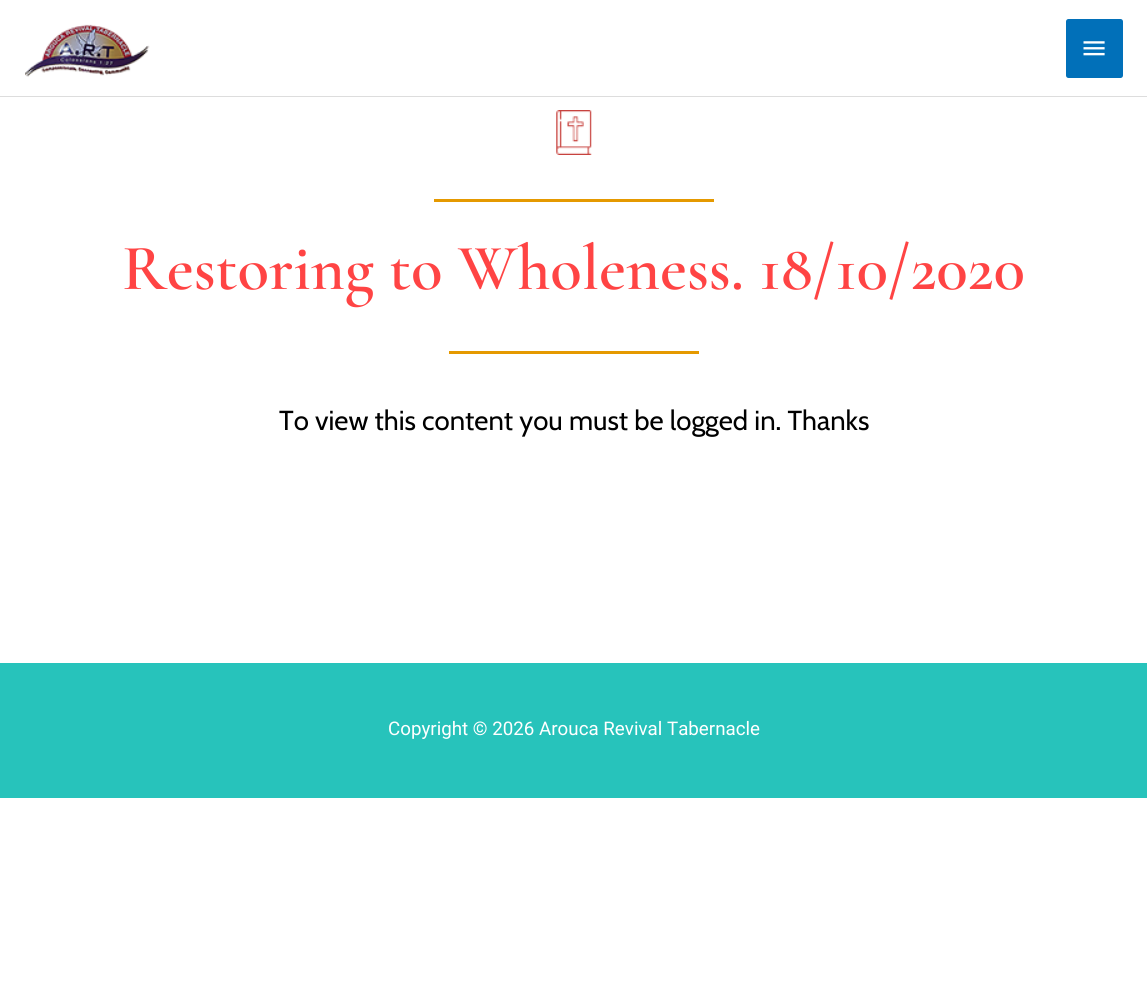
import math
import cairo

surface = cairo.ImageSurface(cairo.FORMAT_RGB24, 1147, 1008)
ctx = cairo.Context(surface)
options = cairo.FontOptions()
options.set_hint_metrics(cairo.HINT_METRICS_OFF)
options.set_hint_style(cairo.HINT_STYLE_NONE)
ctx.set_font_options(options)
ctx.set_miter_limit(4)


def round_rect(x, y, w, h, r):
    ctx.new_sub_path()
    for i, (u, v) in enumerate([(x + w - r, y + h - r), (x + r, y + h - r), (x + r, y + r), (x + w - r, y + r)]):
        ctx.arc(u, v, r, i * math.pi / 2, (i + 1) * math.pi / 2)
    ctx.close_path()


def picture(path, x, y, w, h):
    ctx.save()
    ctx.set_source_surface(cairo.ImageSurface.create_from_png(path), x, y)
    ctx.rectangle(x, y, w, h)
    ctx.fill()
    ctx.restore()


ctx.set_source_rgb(1, 1, 1)
ctx.paint()
ctx.set_source_rgb(0.867, 0.867, 0.867)
ctx.rectangle(0, 96, 1147, 1)
ctx.fill()
picture("img1.png", 25, 24, 125, 53)
ctx.set_source_rgb(0.004, 0.439, 0.725)
round_rect(1066, 19, 57, 59, 2.5)
ctx.fill()
picture("img2.png", 1083, 41, 22, 15)
picture("img3.png", 556, 110, 36, 45)
ctx.set_source_rgb(0.898, 0.6, 0)
ctx.rectangle(434, 199, 280, 3)
ctx.fill()
ctx.select_font_face("Cormorant Garamond SemiBold")
ctx.set_font_size(65)
ctx.set_source_rgb(1, 0.267, 0.267)
ctx.move_to(122, 289)
ctx.show_text("Restoring to Wholeness. 18/10/2020")
ctx.set_source_rgb(0.898, 0.6, 0)
ctx.rectangle(449, 351, 250, 3)
ctx.fill()
ctx.select_font_face("Cabin")
ctx.set_font_size(27.5)
ctx.set_source_rgb(0, 0, 0)
ctx.move_to(279, 430)
ctx.show_text("To view this content you must be logged in. Thanks")
ctx.set_source_rgb(0.153, 0.765, 0.733)
ctx.rectangle(0, 663, 1147, 135)
ctx.fill()
ctx.select_font_face("Roboto")
ctx.set_font_size(18.75)
ctx.set_source_rgb(1, 1, 1)
ctx.move_to(388, 735)
ctx.show_text("Copyright © 2026 Arouca Revival Tabernacle")
surface.write_to_png("page.png")
